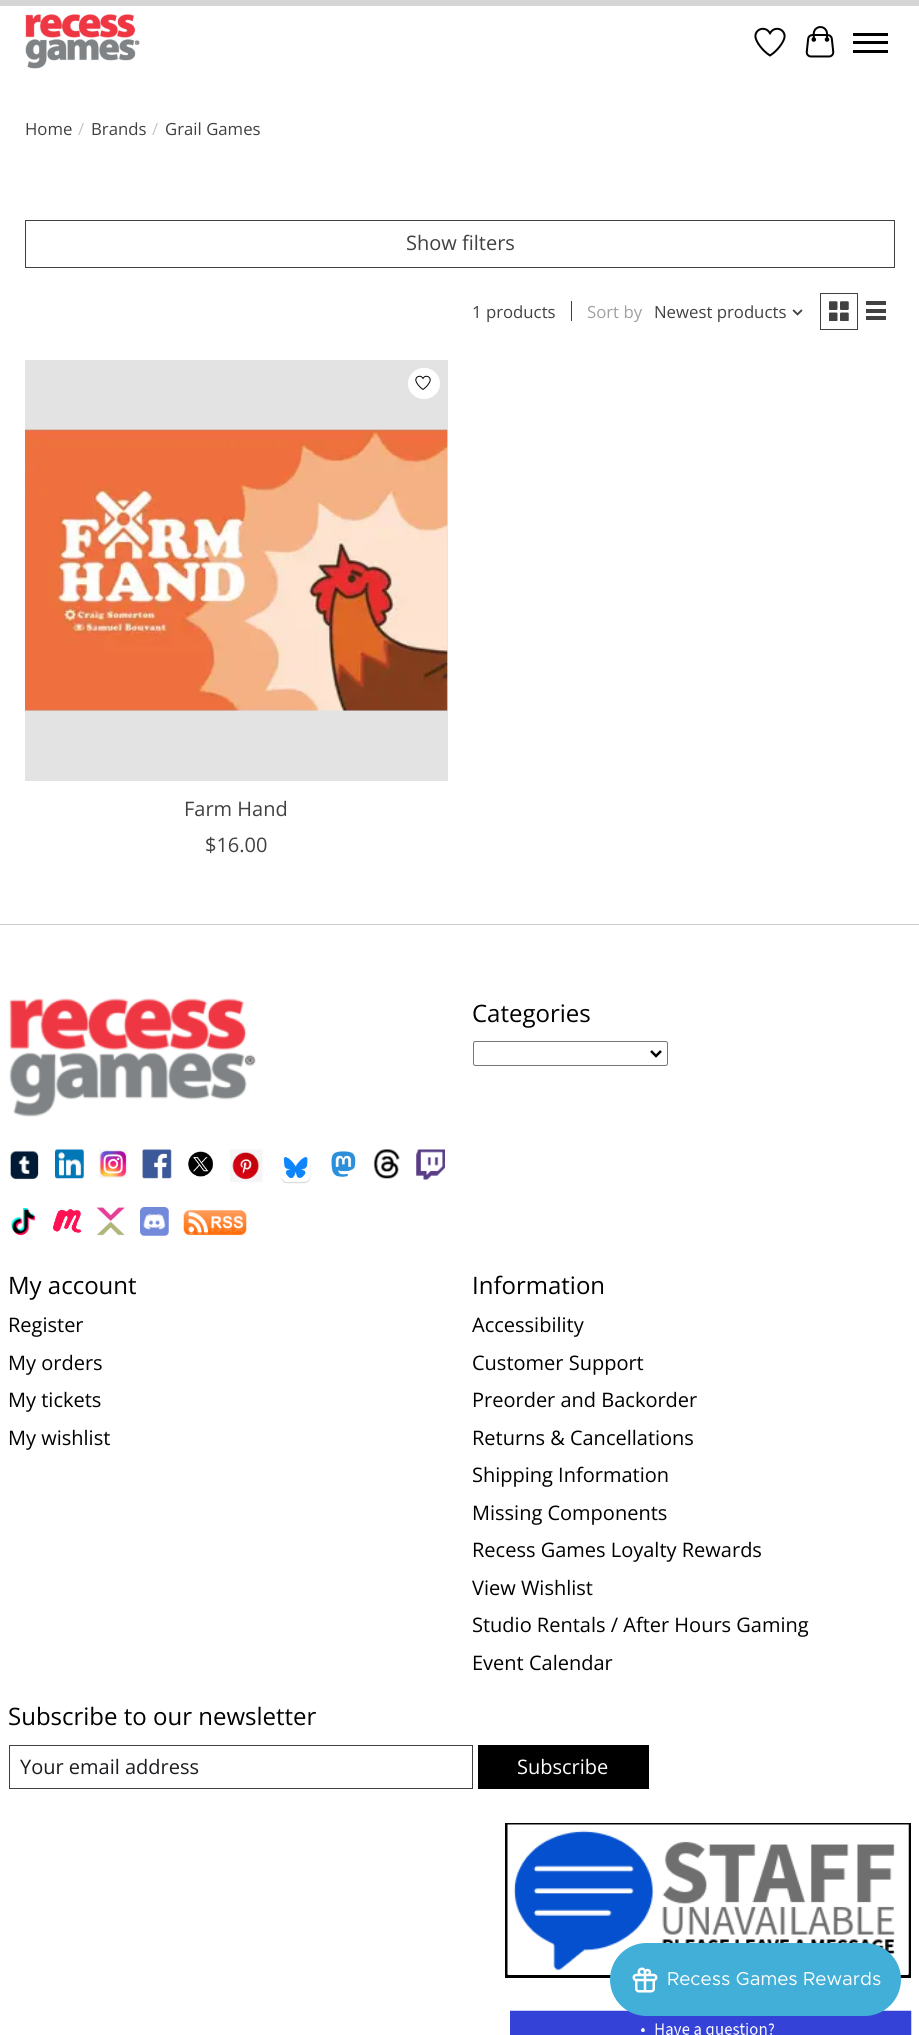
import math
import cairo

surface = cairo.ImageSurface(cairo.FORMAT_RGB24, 919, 2035)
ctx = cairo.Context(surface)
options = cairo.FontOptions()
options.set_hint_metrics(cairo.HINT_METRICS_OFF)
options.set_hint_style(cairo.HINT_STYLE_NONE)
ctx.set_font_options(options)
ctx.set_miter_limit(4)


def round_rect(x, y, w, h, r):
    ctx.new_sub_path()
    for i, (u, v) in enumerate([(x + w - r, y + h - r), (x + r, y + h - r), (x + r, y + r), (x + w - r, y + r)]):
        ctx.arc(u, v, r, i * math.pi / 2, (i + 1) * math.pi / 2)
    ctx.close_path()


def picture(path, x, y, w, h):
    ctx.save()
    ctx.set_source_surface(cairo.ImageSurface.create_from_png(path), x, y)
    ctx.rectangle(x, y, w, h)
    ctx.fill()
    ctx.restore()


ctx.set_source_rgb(1, 1, 1)
ctx.paint()
ctx.set_source_rgb(0.839, 0.839, 0.839)
ctx.rectangle(0, 0, 919, 6)
ctx.fill()
picture("img1.png", 25, 14, 115, 55)
picture("img2.png", 754, 27, 32, 30)
picture("img3.png", 805, 26, 30, 32)
ctx.set_source_rgb(0, 0, 0)
ctx.rectangle(853, 41, 35, 3)
ctx.fill()
ctx.rectangle(853, 33, 35, 3)
ctx.fill()
ctx.rectangle(853, 50, 35, 3)
ctx.fill()
ctx.select_font_face("Open Sans")
ctx.set_font_size(16.75)
ctx.set_source_rgb(0.255, 0.255, 0.255)
ctx.move_to(25, 135)
ctx.show_text("Home")
ctx.set_source_rgb(0.776, 0.776, 0.776)
ctx.move_to(78, 135)
ctx.show_text("/")
ctx.set_source_rgb(0.255, 0.255, 0.255)
ctx.move_to(91, 135)
ctx.show_text("Brands")
ctx.set_source_rgb(0.776, 0.776, 0.776)
ctx.move_to(152, 135)
ctx.show_text("/")
ctx.set_source_rgb(0.255, 0.255, 0.255)
ctx.move_to(165, 135)
ctx.show_text("Grail Games")
ctx.rectangle(25.5, 220.5, 869, 47)
ctx.set_line_width(1)
ctx.stroke()
ctx.set_font_size(20)
ctx.move_to(406, 250)
ctx.show_text("Show filters")
ctx.set_font_size(16.75)
ctx.move_to(472, 318)
ctx.show_text("1 products")
ctx.rectangle(571, 301, 1, 20)
ctx.fill()
ctx.set_source_rgb(0.627, 0.627, 0.627)
ctx.move_to(587, 318)
ctx.show_text("Sort by")
ctx.set_source_rgb(0.255, 0.255, 0.255)
ctx.move_to(654, 318)
ctx.show_text("Newest products")
picture("img4.png", 792, 309, 11, 7)
ctx.rectangle(820.5, 293.5, 37, 36)
ctx.stroke()
picture("img5.png", 829, 301, 20, 20)
ctx.rectangle(866, 301, 20, 4)
ctx.fill()
ctx.rectangle(866, 309, 20, 4)
ctx.fill()
ctx.rectangle(866, 316, 20, 4)
ctx.fill()
ctx.set_source_rgb(0.89, 0.89, 0.89)
ctx.rectangle(25, 360, 423, 421)
ctx.fill()
picture("img6.png", 25, 429, 423, 282)
ctx.set_source_rgb(1, 1, 1)
round_rect(408, 368, 32, 31, 15.5)
ctx.fill()
picture("img7.png", 415, 375, 16, 15)
ctx.set_font_size(20)
ctx.set_source_rgb(0.255, 0.255, 0.255)
ctx.move_to(184, 816)
ctx.show_text("Farm Hand")
ctx.move_to(205, 852)
ctx.show_text("$16.00")
ctx.set_source_rgb(0.8, 0.8, 0.8)
ctx.rectangle(0, 924, 919, 1)
ctx.fill()
picture("img8.png", 9, 998, 247, 119)
picture("img9.png", 10, 1150, 29, 30)
picture("img10.png", 55, 1149, 29, 30)
picture("img11.png", 99, 1149, 29, 29)
picture("img12.png", 142, 1149, 30, 30)
picture("img13.png", 188, 1151, 25, 26)
picture("img14.png", 230, 1149, 33, 33)
picture("img15.png", 280, 1157, 31, 27)
picture("img16.png", 331, 1151, 25, 26)
picture("img17.png", 373, 1149, 27, 30)
picture("img18.png", 416, 1149, 29, 31)
picture("img19.png", 11, 1208, 24, 28)
picture("img20.png", 53, 1209, 29, 24)
picture("img21.png", 96, 1207, 29, 29)
picture("img22.png", 140, 1207, 29, 29)
picture("img23.png", 183, 1210, 64, 26)
ctx.set_font_size(24)
ctx.set_source_rgb(0, 0, 0)
ctx.move_to(472, 1022)
ctx.show_text("Categories")
round_rect(473.5, 1041.5, 194, 24, 2)
ctx.set_source_rgb(0.463, 0.463, 0.463)
ctx.stroke()
ctx.new_path()
ctx.move_to(651, 1051)
ctx.line_to(656, 1056)
ctx.line_to(661, 1051)
ctx.set_source_rgb(0, 0, 0)
ctx.set_line_width(2.5)
ctx.stroke()
ctx.move_to(8, 1294)
ctx.show_text("My account")
ctx.set_font_size(20)
ctx.move_to(8, 1332)
ctx.show_text("Register")
ctx.move_to(8, 1370)
ctx.show_text("My orders")
ctx.move_to(8, 1407)
ctx.show_text("My tickets")
ctx.move_to(8, 1445)
ctx.show_text("My wishlist")
ctx.set_font_size(24)
ctx.move_to(472, 1294)
ctx.show_text("Information")
ctx.set_font_size(20)
ctx.move_to(472, 1332)
ctx.show_text("Accessibility")
ctx.move_to(472, 1370)
ctx.show_text("Customer Support")
ctx.move_to(472, 1407)
ctx.show_text("Preorder and Backorder")
ctx.move_to(472, 1445)
ctx.show_text("Returns & Cancellations")
ctx.move_to(472, 1482)
ctx.show_text("Shipping Information")
ctx.move_to(472, 1520)
ctx.show_text("Missing Components")
ctx.move_to(472, 1557)
ctx.show_text("Recess Games Loyalty Rewards")
ctx.move_to(472, 1595)
ctx.show_text("View Wishlist")
ctx.move_to(472, 1632)
ctx.show_text("Studio Rentals / After Hours Gaming")
ctx.move_to(472, 1670)
ctx.show_text("Event Calendar")
ctx.set_font_size(24)
ctx.move_to(8, 1725)
ctx.show_text("Subscribe to our newsletter")
ctx.rectangle(9.5, 1745.5, 463, 43)
ctx.set_source_rgb(0.255, 0.255, 0.255)
ctx.set_line_width(1)
ctx.stroke()
ctx.set_font_size(20)
ctx.set_source_rgb(0.11, 0.11, 0.129)
ctx.move_to(20, 1774)
ctx.show_text("Your email address")
ctx.set_source_rgb(0, 0, 0)
ctx.rectangle(478, 1745, 171, 44)
ctx.fill()
ctx.set_source_rgb(1, 1, 1)
ctx.move_to(517, 1774)
ctx.show_text("Subscribe")
ctx.rectangle(506.5, 1824.5, 403, 152)
ctx.set_source_rgb(0, 0, 0)
ctx.set_line_width(3)
ctx.stroke()
picture("img24.png", 507, 1824, 402, 151)
picture("img25.png", 510, 2010, 402, 25)
ctx.set_source_rgb(0.255, 0.686, 0.843)
round_rect(610, 1943, 291, 73, 36.5)
ctx.fill()
picture("img26.png", 632, 1967, 26, 26)
ctx.select_font_face("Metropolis")
ctx.set_font_size(18.75)
ctx.set_source_rgb(1, 1, 1)
ctx.move_to(667, 1985)
ctx.show_text("Recess Games Rewards")
surface.write_to_png("page.png")
